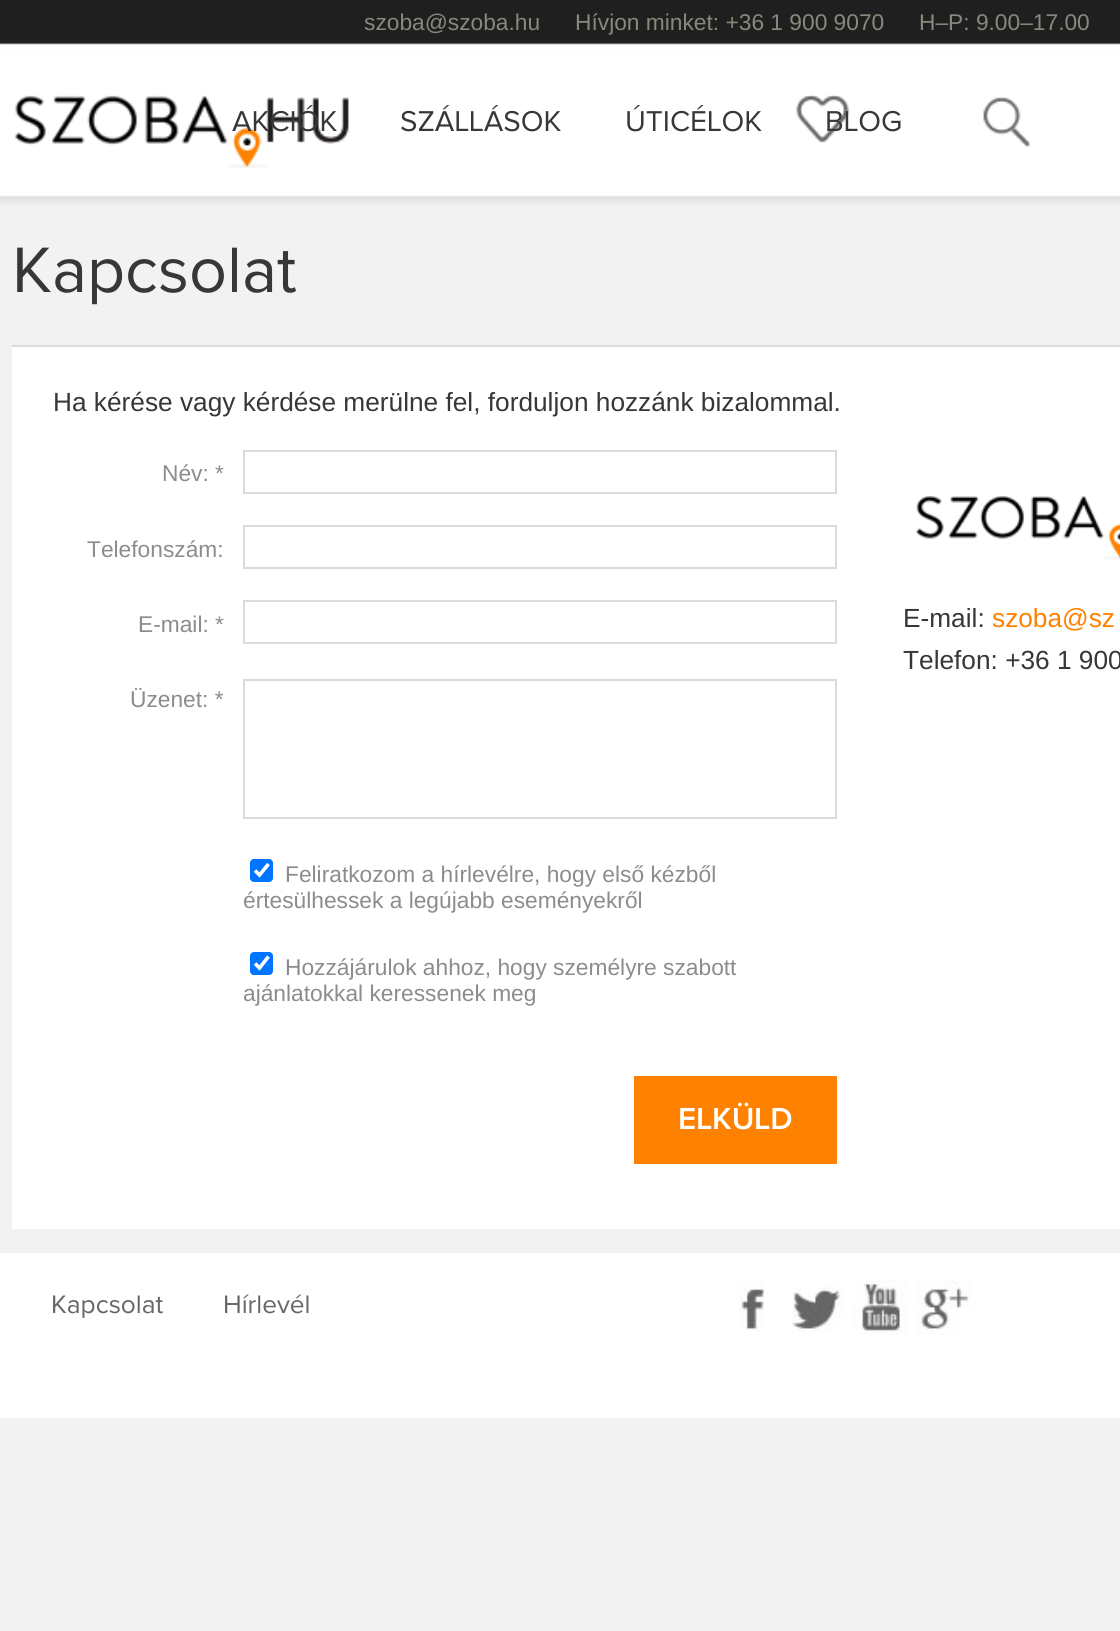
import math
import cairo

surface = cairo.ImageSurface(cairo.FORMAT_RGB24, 1120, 1631)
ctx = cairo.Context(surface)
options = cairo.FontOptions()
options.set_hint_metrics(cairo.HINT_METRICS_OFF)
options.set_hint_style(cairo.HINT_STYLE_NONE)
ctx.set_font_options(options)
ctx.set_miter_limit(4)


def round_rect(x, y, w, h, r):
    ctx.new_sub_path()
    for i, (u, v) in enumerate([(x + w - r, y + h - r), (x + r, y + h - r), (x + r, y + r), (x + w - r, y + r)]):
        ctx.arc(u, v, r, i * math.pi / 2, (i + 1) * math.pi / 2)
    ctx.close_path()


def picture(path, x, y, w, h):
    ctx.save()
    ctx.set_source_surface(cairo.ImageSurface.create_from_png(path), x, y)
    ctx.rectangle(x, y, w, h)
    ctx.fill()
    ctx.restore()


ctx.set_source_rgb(0.949, 0.949, 0.949)
ctx.paint()
picture("img1.png", 0, 0, 1120, 205)
ctx.select_font_face("Liberation Sans")
ctx.set_font_size(22.75)
ctx.set_source_rgb(0.533, 0.533, 0.486)
ctx.move_to(364, 30)
ctx.show_text("szoba@szoba.hu")
ctx.move_to(575, 30)
ctx.show_text("Hívjon minket: +36 1 900 9070")
ctx.move_to(919, 30)
ctx.show_text("H–P: 9.00–17.00")
picture("img2.png", 14, 95, 335, 73)
picture("img3.png", 795, 94, 55, 49)
picture("img4.png", 983, 97, 48, 51)
ctx.select_font_face("Proxima Nova")
ctx.set_font_size(29.75)
ctx.set_source_rgb(0.216, 0.216, 0.216)
ctx.move_to(232, 131)
ctx.show_text("AKCIÓK")
ctx.move_to(400, 131)
ctx.show_text("SZÁLLÁSOK")
ctx.move_to(625, 131)
ctx.show_text("ÚTICÉLOK")
ctx.move_to(825, 131)
ctx.show_text("BLOG")
ctx.set_font_size(66.5)
ctx.move_to(12, 292)
ctx.show_text("Kapcsolat")
ctx.set_source_rgb(0.859, 0.859, 0.859)
ctx.rectangle(12, 345, 1108, 2)
ctx.fill()
ctx.set_source_rgb(1, 1, 1)
ctx.rectangle(12, 347, 1108, 882)
ctx.fill()
ctx.select_font_face("Liberation Sans")
ctx.set_font_size(26.25)
ctx.set_source_rgb(0.216, 0.216, 0.216)
ctx.move_to(53, 411)
ctx.show_text("Ha kérése vagy kérdése merülne fel, forduljon hozzánk bizalommal.")
ctx.set_font_size(22.75)
ctx.set_source_rgb(0.549, 0.549, 0.549)
ctx.move_to(162, 481)
ctx.show_text("Név: *")
ctx.rectangle(244, 451, 592, 42)
ctx.set_source_rgb(0.859, 0.859, 0.859)
ctx.stroke()
ctx.set_source_rgb(0.549, 0.549, 0.549)
ctx.move_to(87, 557)
ctx.show_text("Telefonszám:")
ctx.rectangle(244, 526, 592, 42)
ctx.set_source_rgb(0.859, 0.859, 0.859)
ctx.stroke()
ctx.set_source_rgb(0.549, 0.549, 0.549)
ctx.move_to(138, 632)
ctx.show_text("E-mail: *")
ctx.rectangle(244, 601, 592, 42)
ctx.set_source_rgb(0.859, 0.859, 0.859)
ctx.stroke()
ctx.set_source_rgb(0.549, 0.549, 0.549)
ctx.move_to(130, 707)
ctx.show_text("Üzenet: *")
ctx.rectangle(244, 680, 592, 138)
ctx.set_source_rgb(0.859, 0.859, 0.859)
ctx.stroke()
ctx.set_source_rgb(0, 0.459, 1)
round_rect(250, 859, 23, 23, 4)
ctx.fill()
ctx.new_path()
ctx.move_to(255, 870.5)
ctx.line_to(259.5, 875)
ctx.line_to(268.5, 864)
ctx.set_source_rgb(1, 1, 1)
ctx.set_line_width(3.6)
ctx.stroke()
ctx.set_source_rgb(0.549, 0.549, 0.549)
ctx.move_to(285, 882)
ctx.show_text("Feliratkozom a hírlevélre, hogy első kézből")
ctx.move_to(243, 908)
ctx.show_text("értesülhessek a legújabb eseményekről")
ctx.set_source_rgb(0, 0.459, 1)
round_rect(250, 952, 23, 23, 4)
ctx.fill()
ctx.new_path()
ctx.move_to(255, 963.5)
ctx.line_to(259.5, 968)
ctx.line_to(268.5, 956.5)
ctx.set_source_rgb(1, 1, 1)
ctx.stroke()
ctx.set_source_rgb(0.549, 0.549, 0.549)
ctx.move_to(285, 975)
ctx.show_text("Hozzájárulok ahhoz, hogy személyre szabott")
ctx.move_to(243, 1001)
ctx.show_text("ajánlatokkal keressenek meg")
ctx.set_source_rgb(1, 0.506, 0)
ctx.rectangle(634, 1076, 203, 88)
ctx.fill()
ctx.select_font_face("Proxima Nova SemiBold")
ctx.set_font_size(31.5)
ctx.set_source_rgb(1, 1, 1)
ctx.move_to(678, 1129)
ctx.show_text("ELKÜLD")
picture("img5.png", 915, 496, 205, 64)
ctx.select_font_face("Liberation Sans")
ctx.set_font_size(26.25)
ctx.set_source_rgb(0.216, 0.216, 0.216)
ctx.move_to(903, 627)
ctx.show_text("E-mail:")
ctx.set_source_rgb(1, 0.506, 0)
ctx.move_to(992, 627)
ctx.show_text("szoba@sz")
ctx.set_source_rgb(0.216, 0.216, 0.216)
ctx.move_to(903, 669)
ctx.show_text("Telefon: +36 1 900")
ctx.set_source_rgb(1, 1, 1)
ctx.rectangle(0, 1253, 1120, 165)
ctx.fill()
ctx.select_font_face("Proxima Nova")
ctx.set_source_rgb(0.4, 0.4, 0.4)
ctx.move_to(51, 1313)
ctx.show_text("Kapcsolat")
ctx.move_to(223, 1313)
ctx.show_text("Hírlevél")
picture("img6.png", 739, 1280, 26, 51)
picture("img7.png", 791, 1286, 54, 46)
picture("img8.png", 853, 1279, 54, 56)
picture("img9.png", 917, 1279, 56, 56)
surface.write_to_png("page.png")
